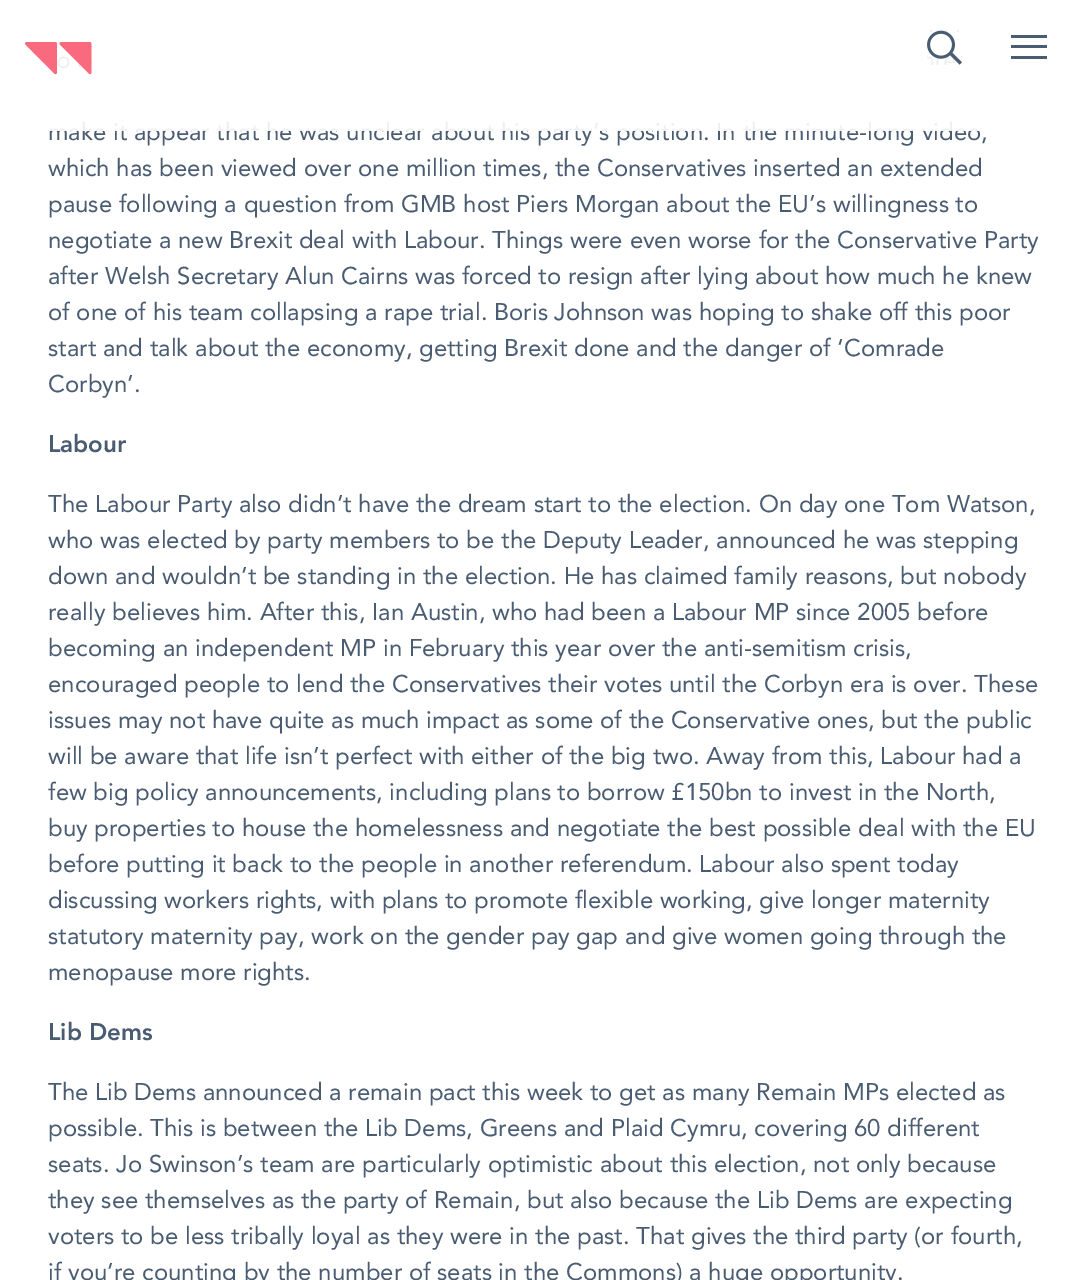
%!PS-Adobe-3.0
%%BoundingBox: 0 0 1089 1280
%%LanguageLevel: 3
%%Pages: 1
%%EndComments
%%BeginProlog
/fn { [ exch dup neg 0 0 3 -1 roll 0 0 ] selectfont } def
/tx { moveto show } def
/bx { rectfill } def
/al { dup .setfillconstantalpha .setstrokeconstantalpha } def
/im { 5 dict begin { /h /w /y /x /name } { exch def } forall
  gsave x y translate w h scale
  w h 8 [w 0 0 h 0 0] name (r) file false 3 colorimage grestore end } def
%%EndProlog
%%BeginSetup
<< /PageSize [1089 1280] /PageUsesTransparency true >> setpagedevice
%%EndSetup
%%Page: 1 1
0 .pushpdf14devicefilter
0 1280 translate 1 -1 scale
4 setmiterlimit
1 setgray
0 0 1089 1280 bx
/Avenir-Regular 24 fn
0.29 0.361 0.447 setrgbcolor
(make it appear that he was unclear about his party’s position. In the minute-long video,) 48 140 tx
0.9 al
1 setgray
49 121 931 10 bx
1 al
(image0.raw) 24 42 68 33 im
(image1.raw) 927 30 35 35 im
0.29 0.361 0.447 setrgbcolor
1011 35 36 3 bx
1011 45 36 3 bx
1011 56 36 3 bx
(which has been viewed over one million times, the Conservatives inserted an extended) 48 176 tx
(pause following a question from GMB host Piers Morgan about the EU’s willingness to) 48 212 tx
(negotiate a new Brexit deal with Labour. Things were even worse for the Conservative Party) 48 248 tx
(after Welsh Secretary Alun Cairns was forced to resign after lying about how much he knew) 48 284 tx
(of one of his team collapsing a rape trial. Boris Johnson was hoping to shake off this poor) 48 320 tx
(start and talk about the economy, getting Brexit done and the danger of ‘Comrade) 48 356 tx
(Corbyn’.) 48 392 tx
/Avenir-Black 24 fn
(Labour) 48 452 tx
/Avenir-Regular 24 fn
(The Labour Party also didn’t have the dream start to the election. On day one Tom Watson,) 48 512 tx
(who was elected by party members to be the Deputy Leader, announced he was stepping) 48 548 tx
(down and wouldn’t be standing in the election. He has claimed family reasons, but nobody) 48 584 tx
(really believes him. After this, Ian Austin, who had been a Labour MP since 2005 before) 48 620 tx
(becoming an independent MP in February this year over the anti-semitism crisis,) 48 656 tx
(encouraged people to lend the Conservatives their votes until the Corbyn era is over. These) 48 692 tx
(issues may not have quite as much impact as some of the Conservative ones, but the public) 48 728 tx
(will be aware that life isn’t perfect with either of the big two. Away from this, Labour had a) 48 764 tx
(few big policy announcements, including plans to borrow £150bn to invest in the North,) 48 800 tx
(buy properties to house the homelessness and negotiate the best possible deal with the EU) 48 836 tx
(before putting it back to the people in another referendum. Labour also spent today) 48 872 tx
(discussing workers rights, with plans to promote flexible working, give longer maternity) 48 908 tx
(statutory maternity pay, work on the gender pay gap and give women going through the) 48 944 tx
(menopause more rights.) 48 980 tx
/Avenir-Black 24 fn
(Lib Dems) 48 1040 tx
/Avenir-Regular 24 fn
(The Lib Dems announced a remain pact this week to get as many Remain MPs elected as) 48 1100 tx
(possible. This is between the Lib Dems, Greens and Plaid Cymru, covering 60 different) 48 1136 tx
(seats. Jo Swinson’s team are particularly optimistic about this election, not only because) 48 1172 tx
(they see themselves as the party of Remain, but also because the Lib Dems are expecting) 48 1208 tx
(voters to be less tribally loyal as they were in the past. That gives the third party \(or fourth,) 48 1244 tx
(if you’re counting by the number of seats in the Commons\) a huge opportunity.) 48 1280 tx
.poppdf14devicefilter showpage
%%EOF
